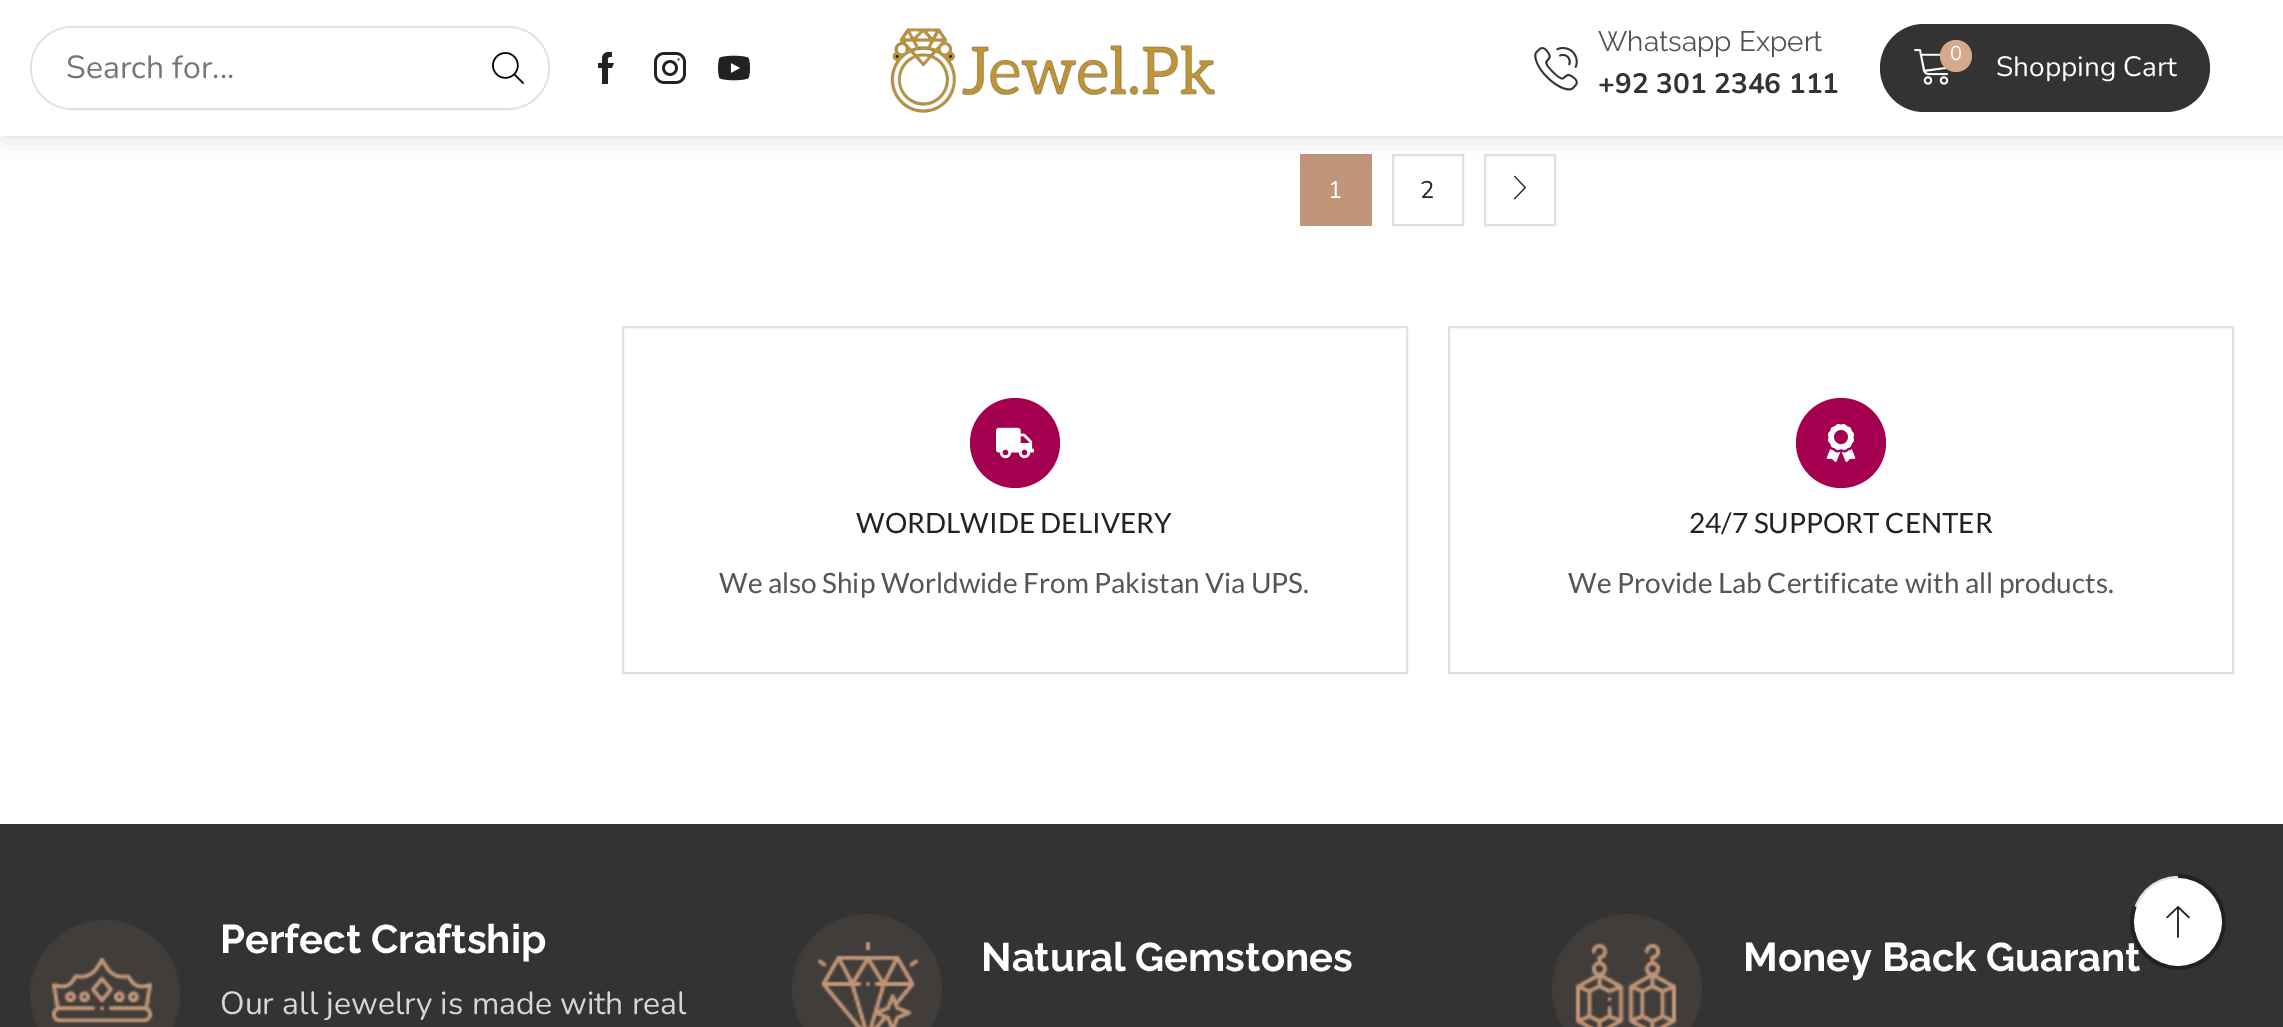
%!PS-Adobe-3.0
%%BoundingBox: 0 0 2283 1027
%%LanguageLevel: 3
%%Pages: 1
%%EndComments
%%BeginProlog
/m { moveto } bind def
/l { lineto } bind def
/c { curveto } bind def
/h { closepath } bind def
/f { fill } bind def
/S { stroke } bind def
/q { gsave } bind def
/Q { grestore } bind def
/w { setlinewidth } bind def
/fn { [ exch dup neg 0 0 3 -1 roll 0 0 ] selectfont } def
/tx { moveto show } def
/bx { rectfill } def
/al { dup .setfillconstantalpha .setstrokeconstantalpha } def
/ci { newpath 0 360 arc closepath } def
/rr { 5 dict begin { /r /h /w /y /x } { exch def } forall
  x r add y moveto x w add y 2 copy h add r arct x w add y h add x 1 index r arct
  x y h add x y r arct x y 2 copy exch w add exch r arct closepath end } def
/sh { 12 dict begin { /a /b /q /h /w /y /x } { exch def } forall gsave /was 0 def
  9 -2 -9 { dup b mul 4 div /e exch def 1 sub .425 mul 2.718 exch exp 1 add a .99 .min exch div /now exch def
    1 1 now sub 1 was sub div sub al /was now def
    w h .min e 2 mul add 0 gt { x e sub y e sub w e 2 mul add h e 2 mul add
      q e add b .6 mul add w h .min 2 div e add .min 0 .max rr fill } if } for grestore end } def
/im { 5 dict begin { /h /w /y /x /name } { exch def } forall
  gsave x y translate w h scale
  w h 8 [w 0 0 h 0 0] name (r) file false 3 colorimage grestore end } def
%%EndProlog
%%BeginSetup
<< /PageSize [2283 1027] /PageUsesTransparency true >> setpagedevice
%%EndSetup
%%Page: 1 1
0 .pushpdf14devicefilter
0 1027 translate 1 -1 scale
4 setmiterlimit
1 setgray
0 0 2283 1027 bx
0.753 0.584 0.471 setrgbcolor
1300 154 72 72 bx
0.882 setgray
2 w
1393 155 70 70 rectstroke
1485 155 70 70 rectstroke
0 setgray
4 0 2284 136 0 12 0.15 sh
1 setgray
0 0 2283 136 bx
0.882 setgray
31 27 518 82 41 rr S
1 setgray
72 28 m 468 28 l 468 108 l 72 108 l 50 108 32 90 32 68 c 32 46 50 28 72 28 c h f
/Nunito-Regular 32 fn
0.459 setgray
(Search for...) 66 78 tx
1 setgray
468 28 m 508 28 l 530 28 548 46 548 68 c 548 90 530 108 508 108 c 468 108 l h f
(image0.raw) 492 52 32 32 im
(image1.raw) 598 52 16 32 im
(image2.raw) 654 52 32 32 im
(image3.raw) 718 55 32 26 im
(image4.raw) 890 28 325 85 im
(image5.raw) 1534 46 44 45 im
/Raleway-Regular 28 fn
0.333 setgray
(Whatsapp Expert) 1598 51 tx
/Nunito-Bold 28 fn
0.2 setgray
(+92 301 2346 111) 1598 93 tx
1880 24 330 88 44 rr f
(image6.raw) 1914 49 35 36 im
0.831 0.663 0.549 setrgbcolor
1956 56 16 ci f
/Nunito-Regular 20 fn
1 setgray
(0) 1950 60 tx
/Nunito-Regular 28 fn
(Shopping Cart) 1996 76 tx
/Nunito-Regular 24 fn
(1) 1328 198 tx
0.133 setgray
(2) 1420 198 tx
(image7.raw) 1513 175 13 25 im
0.882 setgray
623 327 784 346 rectstroke
0.643 0 0.31 setrgbcolor
1015 443 45 ci f
(image8.raw) 996 427 38 32 im
/Lato-Regular 28 fn
0.133 setgray
(WORDLWIDE DELIVERY) 856 533 tx
0.333 setgray
(We also Ship Worldwide From Pakistan Via UPS.) 719 593 tx
0.882 setgray
1449 327 784 346 rectstroke
0.643 0 0.31 setrgbcolor
1841 443 45 ci f
(image9.raw) 1826 424 30 38 im
0.133 setgray
(24/7 SUPPORT CENTER) 1689 533 tx
0.333 setgray
(We Provide Lab Certificate with all products.) 1568 593 tx
0.2 setgray
0 824 2283 203 bx
1 setgray
2178 922 45 ci q f Q
0.882 setgray
S
/Raleway-Bold 40 fn
1 setgray
(Money Back Guarant) 1743 971 tx
0.133 setgray
3.8 w
2178 876 m 2203.5 876 2224 896.5 2224 922 c 2224 947.5 2203.5 968 2178 968 c 2152.5 968 2132 947.5 2132 922 c 2132 916.5 2133 911.5 2134.5 906.5 c S
(image10.raw) 2166 906 24 32 im
(image11.raw) 30 920 150 107 im
1 setgray
(Perfect Craftship) 220 953 tx
/Nunito-Regular 32 fn
0.839 setgray
(Our all jewelry is made with real) 220 1014 tx
(image12.raw) 792 914 150 113 im
/Raleway-Bold 40 fn
1 setgray
(Natural Gemstones) 981 971 tx
(image13.raw) 1552 914 150 113 im
.poppdf14devicefilter showpage
%%EOF
